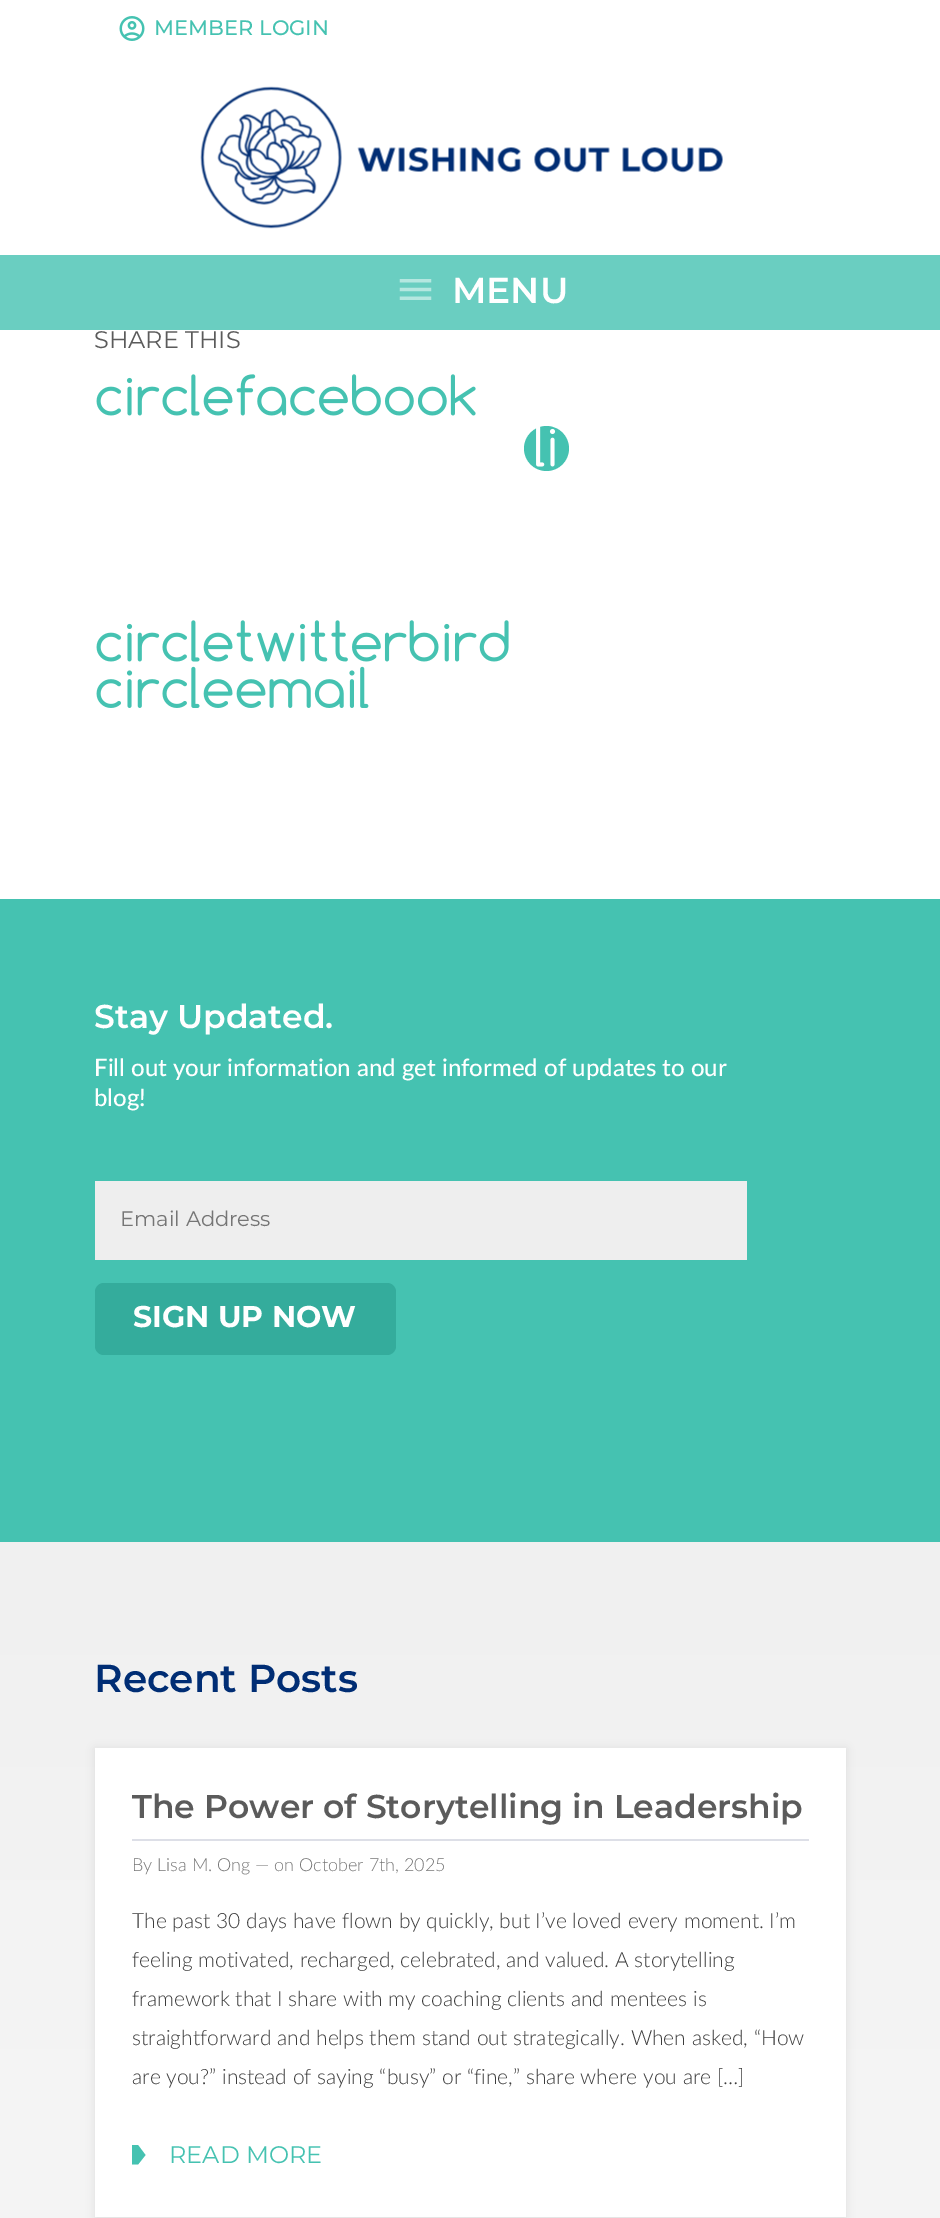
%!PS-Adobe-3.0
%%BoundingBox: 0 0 940 2218
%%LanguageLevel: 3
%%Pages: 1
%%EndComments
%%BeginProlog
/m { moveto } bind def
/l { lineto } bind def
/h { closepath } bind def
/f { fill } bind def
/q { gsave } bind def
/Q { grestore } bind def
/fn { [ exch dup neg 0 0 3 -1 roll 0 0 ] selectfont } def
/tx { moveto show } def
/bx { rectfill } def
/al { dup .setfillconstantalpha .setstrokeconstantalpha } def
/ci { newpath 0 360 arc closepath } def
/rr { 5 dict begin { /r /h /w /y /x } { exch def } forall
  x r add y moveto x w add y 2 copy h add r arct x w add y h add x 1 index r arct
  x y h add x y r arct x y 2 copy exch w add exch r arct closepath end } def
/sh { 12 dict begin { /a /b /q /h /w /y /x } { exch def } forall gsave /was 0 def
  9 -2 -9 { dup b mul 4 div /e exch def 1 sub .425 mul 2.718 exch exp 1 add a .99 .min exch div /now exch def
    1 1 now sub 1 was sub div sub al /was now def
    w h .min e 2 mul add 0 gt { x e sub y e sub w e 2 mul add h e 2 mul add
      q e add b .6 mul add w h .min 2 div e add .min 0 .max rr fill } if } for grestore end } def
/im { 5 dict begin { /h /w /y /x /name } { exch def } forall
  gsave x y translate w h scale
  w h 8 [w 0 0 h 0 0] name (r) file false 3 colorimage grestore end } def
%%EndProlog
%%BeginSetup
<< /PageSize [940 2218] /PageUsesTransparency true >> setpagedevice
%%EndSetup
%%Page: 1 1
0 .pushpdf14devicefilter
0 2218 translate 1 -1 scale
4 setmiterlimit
1 setgray
0 0 940 2218 bx
(image0.raw) 119 16 26 25 im
/Montserrat-Medium 21 fn
0.271 0.761 0.694 setrgbcolor
(MEMBER LOGIN) 154 35 tx
(image1.raw) 200 86 523 143 im
0.416 0.808 0.757 setrgbcolor
0 255 940 75 bx
(image2.raw) 399 279 33 21 im
/Montserrat-SemiBold 36 fn
1 setgray
(MENU) 452 303 tx
/Montserrat-Regular 24 fn
0.357 setgray
(SHARE THIS) 94 348 tx
(image3.raw) 96 374 380 42 im
0.271 0.761 0.694 setrgbcolor
546.5 448.5 22.5 ci f
(image4.raw) 536 427 20 40 im
(image5.raw) 96 620 413 42 im
(image6.raw) 96 666 273 42 im
0 899 940 643 bx
/Montserrat-SemiBold 33 fn
1 setgray
(Stay Updated.) 94 1028 tx
/Lato-Medium 24 fn
(Fill out your information and get informed of updates to our) 94 1076 tx
(blog!) 94 1106 tx
0.933 setgray
95 1181 652 79 bx
/Montserrat-Regular 21 fn
0.459 setgray
(Email Address) 120 1226 tx
0.204 0.675 0.612 setrgbcolor
95 1283 301 72 9 rr f
/Montserrat-Bold 30 fn
1 setgray
(SIGN UP NOW) 133 1327 tx
q 0 1542 m 940 1542 l 940 2218 l 0 2218 l h clip newpath
<< /ShadingType 2 /ColorSpace /DeviceRGB /Coords [470 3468 470 1542] /Extend [true true] /Function << /FunctionType 2 /Domain [0 1] /C0 [1 1 1] /C1 [0.941 0.941 0.941] /N 1 >> >> shfill Q
/Montserrat-SemiBold 39 fn
0 0.176 0.455 setrgbcolor
(Recent Posts) 94 1692 tx
0.796 setgray
95 1749 751 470 0 4.5 0.5 sh
1 setgray
95 1748 751 469 bx
0.867 0.875 0.906 setrgbcolor
132 1839 677 2 bx
/Montserrat-SemiBold 33 fn
0.357 setgray
(The Power of Storytelling in Leadership) 132 1818 tx
/Lato-Light 18 fn
0.459 setgray
(By Lisa M. Ong — on October 7th, 2025) 132 1871 tx
/Lato-Light 21 fn
0.235 setgray
(The past 30 days have flown by quickly, but I’ve loved every moment. I’m) 132 1928 tx
(feeling motivated, recharged, celebrated, and valued. A storytelling) 132 1967 tx
(framework that I share with my coaching clients and mentees is) 132 2006 tx
(straightforward and helps them stand out strategically. When asked, “How) 132 2045 tx
(are you?” instead of saying “busy” or “fine,” share where you are […]) 132 2084 tx
0.271 0.761 0.694 setrgbcolor
138 2145 m 132 2145 l 132 2164.5 l 138 2164.5 l 145.5 2155 l h f
/Montserrat-Regular 24 fn
(READ MORE) 169 2163 tx
.poppdf14devicefilter showpage
%%EOF
